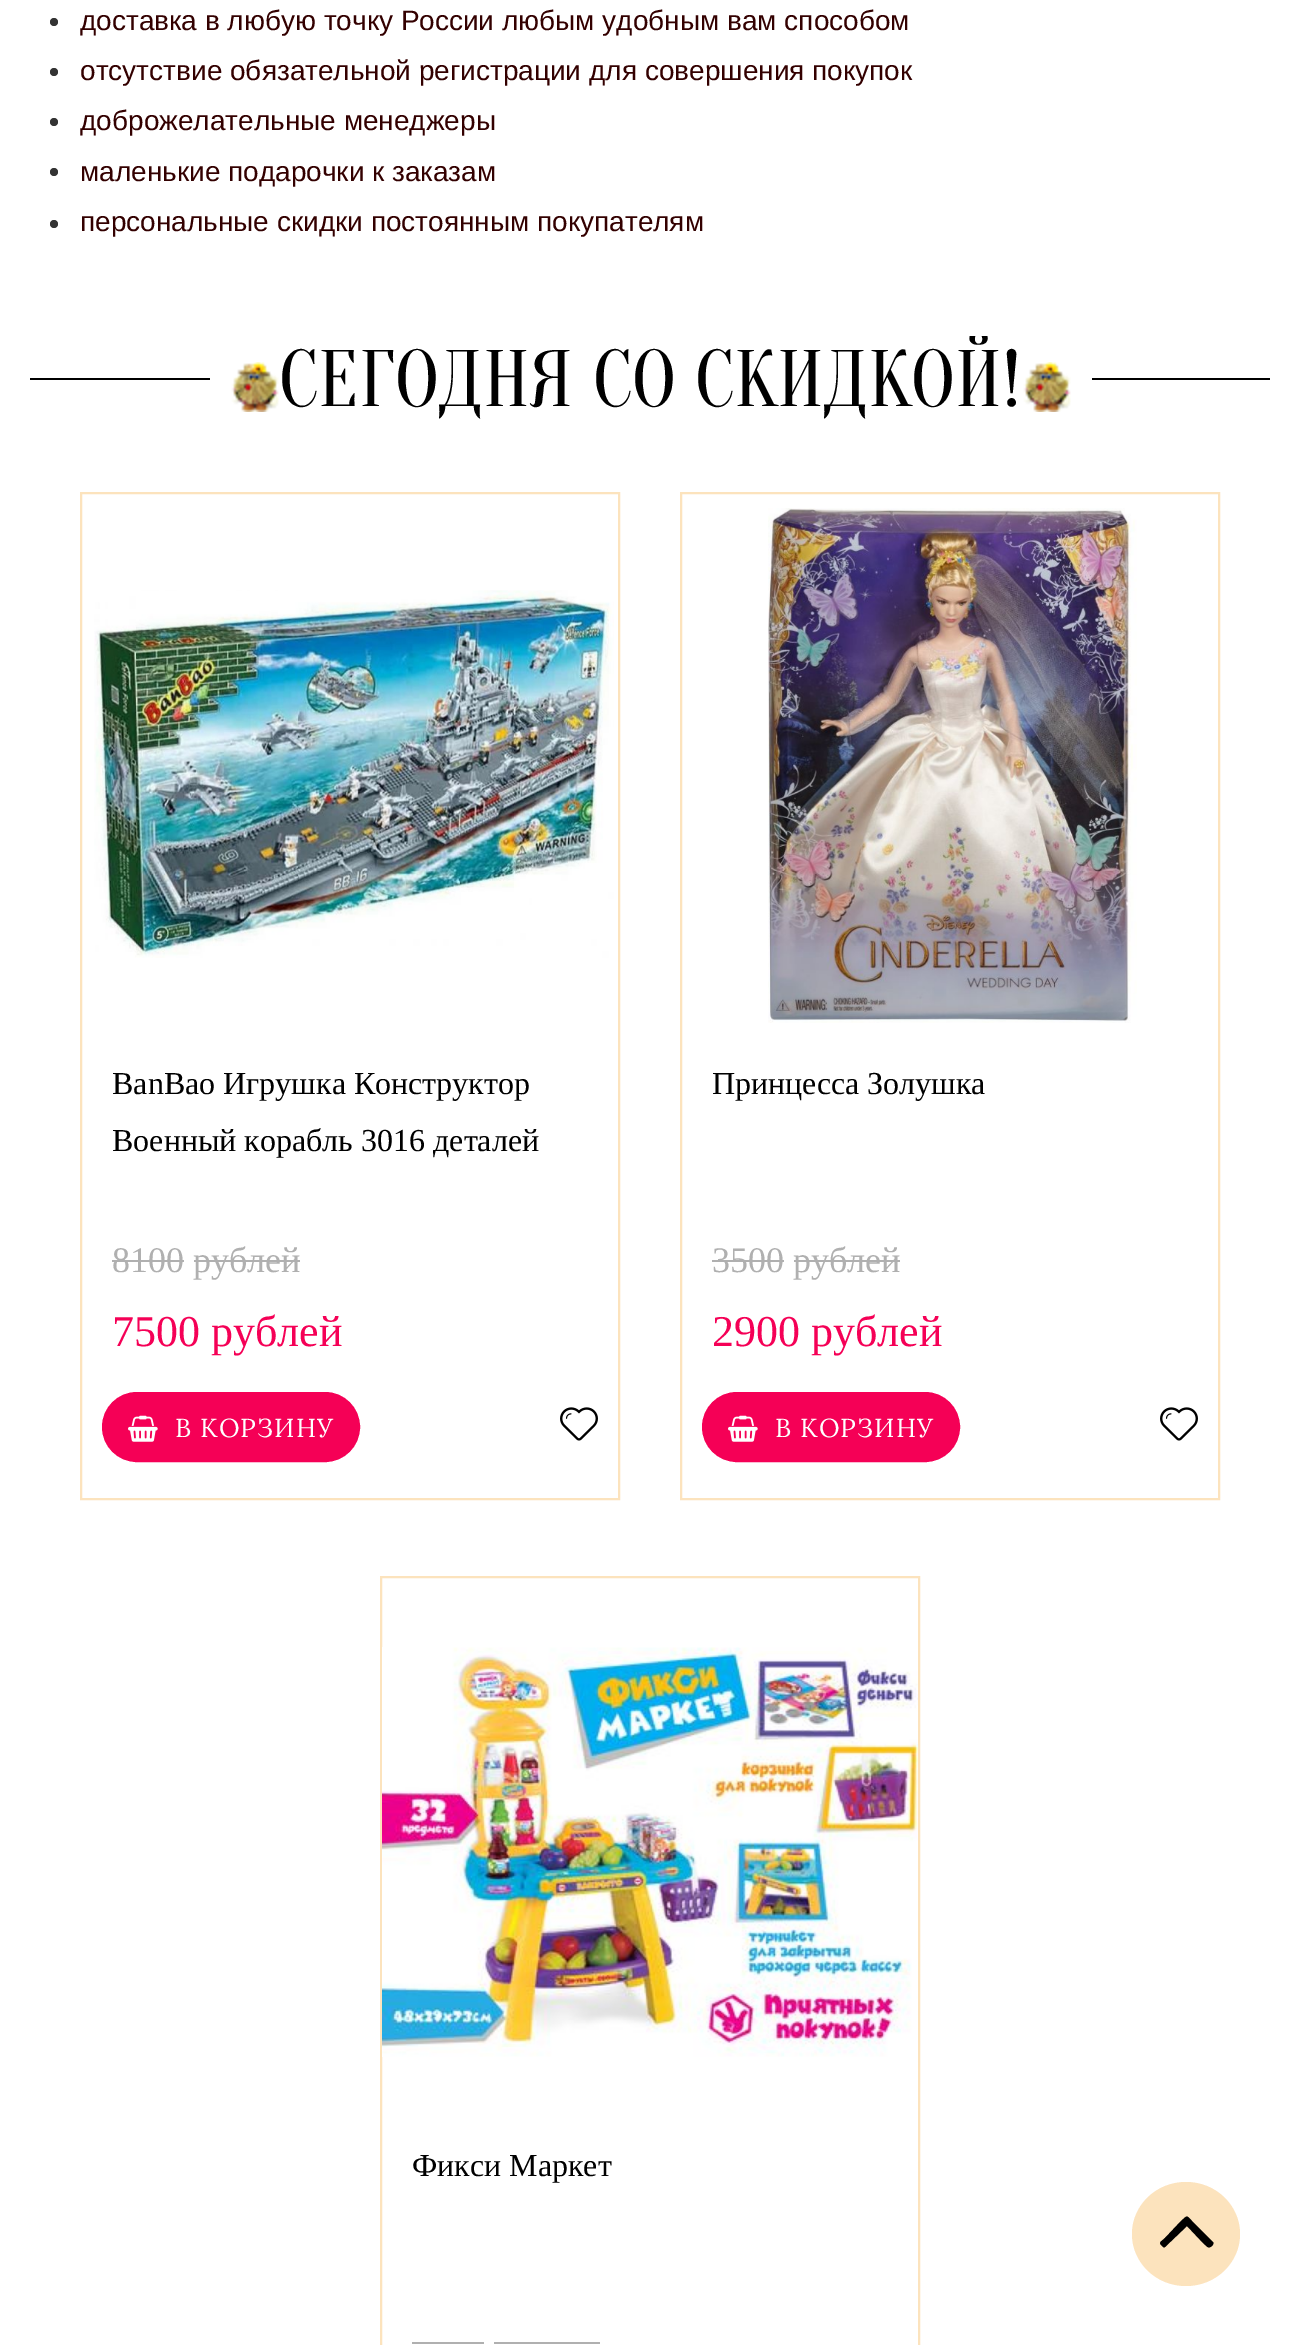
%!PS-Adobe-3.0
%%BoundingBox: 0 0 1299 2345
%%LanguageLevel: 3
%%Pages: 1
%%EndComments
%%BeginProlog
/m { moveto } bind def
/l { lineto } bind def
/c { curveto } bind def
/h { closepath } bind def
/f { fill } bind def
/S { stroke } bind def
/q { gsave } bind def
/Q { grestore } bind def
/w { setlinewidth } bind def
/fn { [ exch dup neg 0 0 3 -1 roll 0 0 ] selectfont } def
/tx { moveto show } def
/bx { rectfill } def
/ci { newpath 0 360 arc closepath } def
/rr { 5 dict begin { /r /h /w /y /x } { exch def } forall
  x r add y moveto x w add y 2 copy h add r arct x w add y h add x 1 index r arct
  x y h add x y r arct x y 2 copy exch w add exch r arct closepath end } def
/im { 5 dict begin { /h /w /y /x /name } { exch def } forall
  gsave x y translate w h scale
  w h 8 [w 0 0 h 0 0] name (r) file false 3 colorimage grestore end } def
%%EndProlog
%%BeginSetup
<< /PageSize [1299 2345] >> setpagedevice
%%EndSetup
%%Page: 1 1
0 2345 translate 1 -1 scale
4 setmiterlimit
1 setgray
0 0 1299 2345 bx
0.2 setgray
54 22 4 ci f
/LiberationSans-Regular 28 fn
0.2 0 0 setrgbcolor
(доставка в любую точку России любым удобным вам способом) 80 30 tx
0.2 setgray
54 72 4 ci f
0.2 0 0 setrgbcolor
(отсутствие обязательной регистрации для совершения покупок) 80 80 tx
0.2 setgray
54 122 4 ci f
0.2 0 0 setrgbcolor
(доброжелательные менеджеры) 80 130 tx
0.2 setgray
54 172 4 ci f
0.2 0 0 setrgbcolor
(маленькие подарочки к заказам) 80 181 tx
0.2 setgray
54 224 4 ci f
0.2 0 0 setrgbcolor
(персональные скидки постоянным покупателям) 80 231 tx
0 setgray
30 378 1240 2 bx
1 setgray
210 378 882 2 bx
(image0.raw) 231 362 48 50 im
/Oranienbaum-Regular 80 fn
0 setgray
(СЕГОДНЯ СО СКИДКОЙ!) 279 406 tx
(image0.raw) 1023 362 48 50 im
0.988 0.89 0.741 setrgbcolor
2 w
81 493 538 1006 rectstroke
(image1.raw) 94 590 520 368 im
/LiberationSerif-Regular 32 fn
0 setgray
(BanBao Игрушка Конструктор) 112 1094 tx
(Военный корабль 3016 деталей) 112 1151 tx
/LiberationSerif-Regular 36 fn
0.69 setgray
(8100 рублей) 112 1272 tx
112 1260 72 2 bx
194 1260 106 2 bx
/LiberationSerif-Regular 44 fn
0.961 0 0.337 setrgbcolor
(7500 рублей) 112 1346 tx
103 1393 256 68 34 rr q f Q
S
(image2.raw) 128 1415 30 27 im
/Lora-Regular 26 fn
1 setgray
175 1437 m 1 0 (В КОРЗИНУ) ashow
(image3.raw) 560 1407 38 34 im
0.988 0.89 0.741 setrgbcolor
681 493 538 1006 rectstroke
(image4.raw) 768 508 369 515 im
/LiberationSerif-Regular 32 fn
0 setgray
(Принцесса Золушка) 712 1094 tx
/LiberationSerif-Regular 36 fn
0.69 setgray
(3500 рублей) 712 1272 tx
712 1260 72 2 bx
794 1260 106 2 bx
/LiberationSerif-Regular 44 fn
0.961 0 0.337 setrgbcolor
(2900 рублей) 712 1346 tx
703 1393 256 68 34 rr q f Q
S
(image2.raw) 728 1415 30 27 im
/Lora-Regular 26 fn
1 setgray
775 1437 m 1 0 (В КОРЗИНУ) ashow
(image3.raw) 1160 1407 38 34 im
0.988 0.89 0.741 setrgbcolor
381 1577 538 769 rectstroke
(image5.raw) 382 1647 536 410 im
/LiberationSerif-Regular 32 fn
0 setgray
(Фикси Маркет) 412 2176 tx
0.69 setgray
412 2342 72 2 bx
494 2342 106 2 bx
0.988 0.89 0.741 setrgbcolor
1186 2182 m 1216 2182 1240 2205.5 1240 2234 c 1240 2262.5 1216 2286 1186 2286 c 1156 2286 1132 2262.5 1132 2234 c 1132 2205.5 1156 2182 1186 2182 c h f
0 setgray
1213 2242 m 1214 2243 1213 2245 1212 2246 c 1208 2249 1208 2247 1204 2244 c 1187 2226 l 1165 2247 l 1164 2248 1163 2247 1162 2246 c 1158 2242 1161 2242 1165 2238 c 1181 2221 l 1188 2215 1186 2215 1192 2221 c h f
showpage
%%EOF
